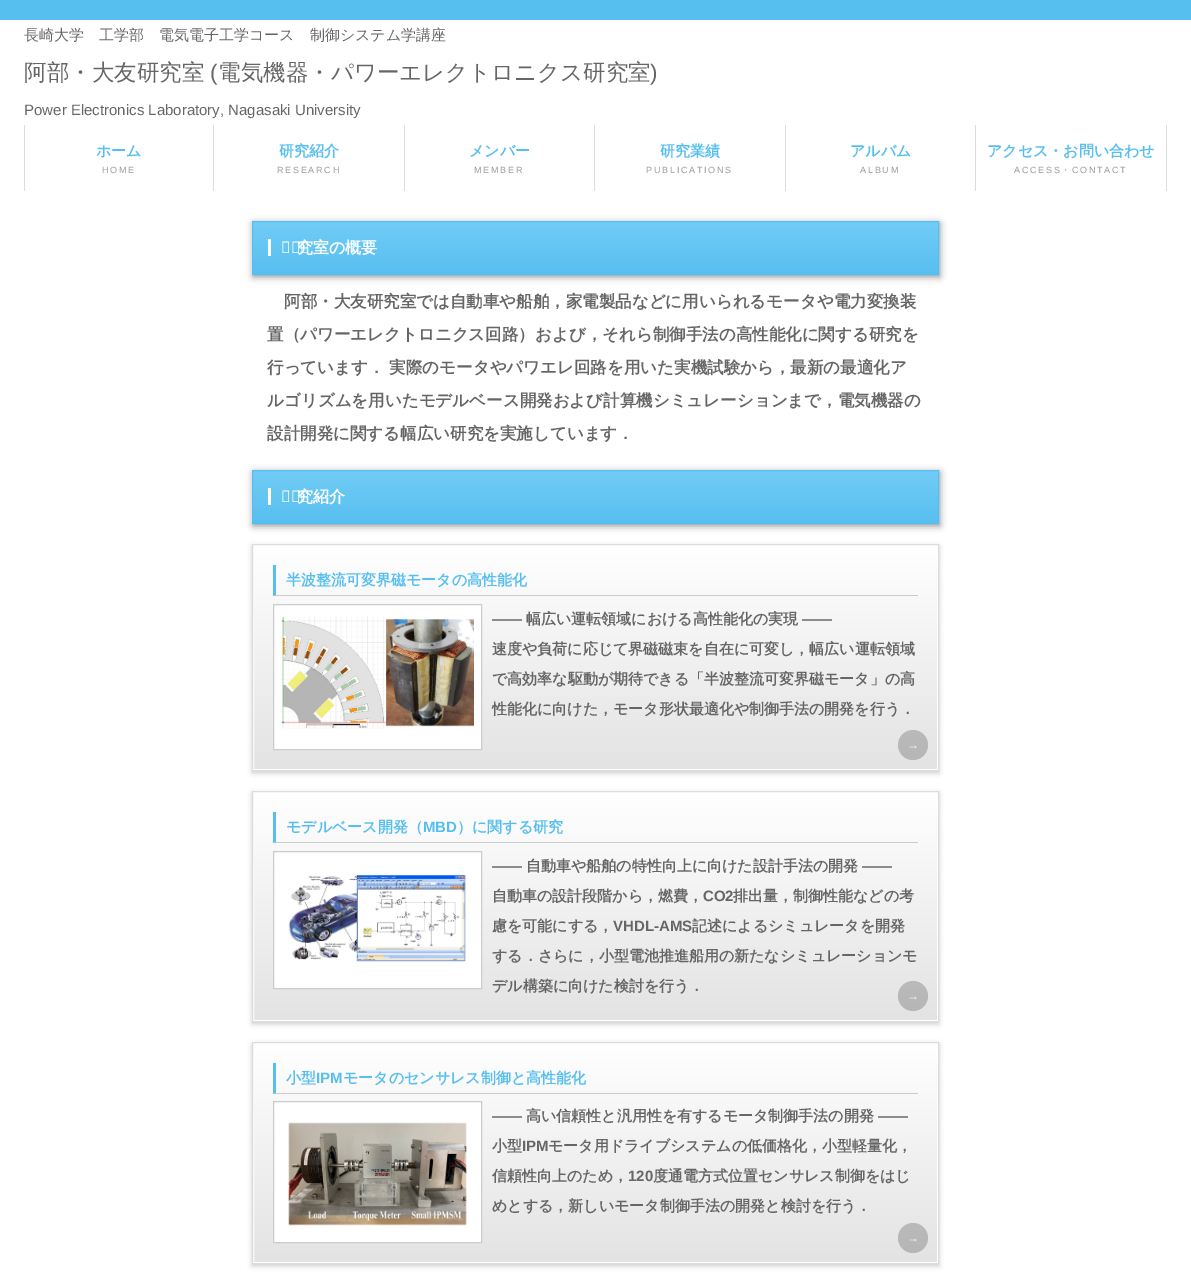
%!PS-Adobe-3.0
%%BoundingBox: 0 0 1191 1276
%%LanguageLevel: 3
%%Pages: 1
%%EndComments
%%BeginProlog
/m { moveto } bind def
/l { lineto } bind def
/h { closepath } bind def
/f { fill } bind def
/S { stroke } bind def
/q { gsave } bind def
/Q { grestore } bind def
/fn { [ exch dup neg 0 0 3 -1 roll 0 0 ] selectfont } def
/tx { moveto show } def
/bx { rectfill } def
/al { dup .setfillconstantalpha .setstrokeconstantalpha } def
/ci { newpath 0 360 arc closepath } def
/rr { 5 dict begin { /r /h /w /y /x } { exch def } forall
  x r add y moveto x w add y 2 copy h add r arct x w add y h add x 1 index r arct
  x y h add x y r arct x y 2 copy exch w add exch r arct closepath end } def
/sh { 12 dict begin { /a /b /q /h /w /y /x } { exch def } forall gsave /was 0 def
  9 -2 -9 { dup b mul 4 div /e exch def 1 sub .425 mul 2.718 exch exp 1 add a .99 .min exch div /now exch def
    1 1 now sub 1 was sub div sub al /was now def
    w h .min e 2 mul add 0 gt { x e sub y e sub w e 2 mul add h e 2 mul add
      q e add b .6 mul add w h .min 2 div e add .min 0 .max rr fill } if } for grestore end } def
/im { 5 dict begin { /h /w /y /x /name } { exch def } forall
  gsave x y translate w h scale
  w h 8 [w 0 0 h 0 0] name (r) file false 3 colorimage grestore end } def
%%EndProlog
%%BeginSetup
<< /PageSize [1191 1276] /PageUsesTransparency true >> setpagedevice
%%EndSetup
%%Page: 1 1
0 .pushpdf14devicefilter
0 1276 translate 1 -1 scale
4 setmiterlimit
1 setgray
0 0 1191 1276 bx
0.341 0.749 0.941 setrgbcolor
0 0 1191 20 bx
/WenQuanYiZenHei-Medium 15 fn
0.4 setgray
(長崎大学　工学部　電気電子工学コース　制御システム学講座) 24 40 tx
/WenQuanYiZenHei-Medium 22.5 fn
(阿部・大友研究室) 24 80 tx
/LiberationSans-Regular 22.5 fn
(\() 210 80 tx
/WenQuanYiZenHei-Medium 22.5 fn
(電気機器・パワーエレクトロニクス研究室) 218 80 tx
/LiberationSans-Regular 22.5 fn
(\)) 650 80 tx
/LiberationSans-Regular 15 fn
(Power Electronics Laboratory, Nagasaki University) 24 115 tx
0.863 setgray
213 125 1 66 bx
24 125 1 66 bx
/WenQuanYiZenHei-Bold 15 fn
0.341 0.749 0.941 setrgbcolor
(ホーム) 96 156 tx
/LiberationSans-Regular 9 fn
0.6 setgray
102 173 m 1.75 0 (HOME) ashow
0.863 setgray
404 125 1 66 bx
/WenQuanYiZenHei-Bold 15 fn
0.341 0.749 0.941 setrgbcolor
(研究紹介) 279 156 tx
/LiberationSans-Regular 9 fn
0.6 setgray
277 173 m 1.75 0 (RESEARCH) ashow
0.863 setgray
594 125 1 66 bx
/WenQuanYiZenHei-Bold 15 fn
0.341 0.749 0.941 setrgbcolor
(メンバー) 469 156 tx
/LiberationSans-Regular 9 fn
0.6 setgray
474 173 m 1.75 0 (MEMBER) ashow
0.863 setgray
785 125 1 66 bx
/WenQuanYiZenHei-Bold 15 fn
0.341 0.749 0.941 setrgbcolor
(研究業績) 660 156 tx
/LiberationSans-Regular 9 fn
0.6 setgray
646 173 m 1.75 0 (PUBLICATIONS) ashow
0.863 setgray
975 125 1 66 bx
/WenQuanYiZenHei-Bold 15 fn
0.341 0.749 0.941 setrgbcolor
(アルバム) 850 156 tx
/LiberationSans-Regular 9 fn
0.6 setgray
860 173 m 1.75 0 (ALBUM) ashow
0.863 setgray
1166 125 1 66 bx
/WenQuanYiZenHei-Bold 15 fn
0.341 0.749 0.941 setrgbcolor
(アクセス・お問い合わせ) 987 156 tx
/LiberationSans-Regular 9 fn
0.6 setgray
1014 173 m 1.75 0 (ACCESS) ashow
/WenQuanYiZenHei-Medium 9 fn
1061 173 m 1.75 0 (・) ashow
/LiberationSans-Regular 9 fn
1072 173 m 1.75 0 (CONTACT) ashow
0 setgray
253 223 687 54 0 3.5 0.4 sh
q 253 222 m 938 222 l 938 274 l 253 274 l h clip newpath
<< /ShadingType 2 /ColorSpace /DeviceRGB /Coords [596 222 596 274] /Extend [true true] /Function << /FunctionType 2 /Domain [0 1] /C0 [0.447 0.8 0.965] /C1 [0.341 0.749 0.941] /N 1 >> >> shfill Q
0.341 0.749 0.941 setrgbcolor
252.5 221.5 686 53 rectstroke
/NotoSans-Thin 16 fn
1 setgray
(研) 281 253 tx
268 239 3 17 bx
/WenQuanYiZenHei-Bold 16 fn
(究室の概要) 297 253 tx
/WenQuanYiZenHei-Bold 16.5 fn
0.4 setgray
(阿部・大友研究室では自動車や船舶，家電製品などに用いられるモータや電力変換装) 284 307 tx
(置（パワーエレクトロニクス回路）および，それら制御手法の高性能化に関する研究を) 267 340 tx
(行っています． 実際のモータやパワエレ回路を用いた実機試験から，最新の最適化ア) 267 373 tx
(ルゴリズムを用いたモデルベース開発および計算機シミュレーションまで，電気機器の) 267 406 tx
(設計開発に関する幅広い研究を実施しています．) 267 439 tx
0 setgray
253 472 687 54 0 3.5 0.4 sh
q 253 471 m 938 471 l 938 523 l 253 523 l h clip newpath
<< /ShadingType 2 /ColorSpace /DeviceRGB /Coords [596 471 596 523] /Extend [true true] /Function << /FunctionType 2 /Domain [0 1] /C0 [0.447 0.8 0.965] /C1 [0.341 0.749 0.941] /N 1 >> >> shfill Q
0.341 0.749 0.941 setrgbcolor
252.5 470.5 686 53 rectstroke
/NotoSans-Thin 16 fn
1 setgray
(研) 281 502 tx
268 488 3 17 bx
/WenQuanYiZenHei-Bold 16 fn
(究紹介) 297 502 tx
0.8 setgray
252 546 687 227 0 2.5 1 sh
q 254 546 m 937 546 l 937 769 l 254 769 l h clip newpath
<< /ShadingType 2 /ColorSpace /DeviceRGB /Coords [596 545 596 770] /Extend [true true] /Function << /FunctionType 2 /Domain [0 1] /C0 [1 1 1] /C1 [0.89 0.89 0.89] /N 1 >> >> shfill Q
1 setgray
253.5 545.5 684 224 rectstroke
0.863 setgray
252.5 544.5 686 226 rectstroke
0.8 setgray
918 596 m 273 596 l 276 595 l 918 595 l h f
0.341 0.749 0.941 setrgbcolor
273 596 m 273 565 l 276 565 l 276 595 l h f
/WenQuanYiZenHei-Bold 15 fn
(半波整流可変界磁モータの高性能化) 286 585 tx
1 setgray
273.5 604.5 m 481.5 604.5 l 481.5 749.5 l 273.5 749.5 l h q f Q
0.8 setgray
S
(image0.raw) 281 616 193 113 im
/LiberationSans-Bold 15 fn
0.4 setgray
(――) 492 624 tx
/WenQuanYiZenHei-Bold 15 fn
(幅広い運転領域における高性能化の実現) 526 624 tx
/LiberationSans-Bold 15 fn
(――) 802 624 tx
/WenQuanYiZenHei-Bold 15 fn
(速度や負荷に応じて界磁磁束を自在に可変し，幅広い運転領域) 492 654 tx
(で高効率な駆動が期待できる「半波整流可変界磁モータ」の高) 492 684 tx
(性能化に向けた，モータ形状最適化や制御手法の開発を行う．) 492 714 tx
0.2 al
0 setgray
913 745 15 ci f
/LiberationSans-Bold 12 fn
1 al
1 setgray
(→) 907 749 tx
0.8 setgray
252 793 687 231 0 2.5 1 sh
q 254 793 m 937 793 l 937 1020 l 254 1020 l h clip newpath
<< /ShadingType 2 /ColorSpace /DeviceRGB /Coords [596 792 596 1021] /Extend [true true] /Function << /FunctionType 2 /Domain [0 1] /C0 [1 1 1] /C1 [0.89 0.89 0.89] /N 1 >> >> shfill Q
1 setgray
253.5 792.5 684 228 rectstroke
0.863 setgray
252.5 791.5 686 230 rectstroke
0.8 setgray
918 843 m 273 843 l 276 842 l 918 842 l h f
0.341 0.749 0.941 setrgbcolor
273 843 m 273 812 l 276 812 l 276 842 l h f
/WenQuanYiZenHei-Bold 15 fn
(モデルベース開発（) 286 832 tx
/LiberationSans-Bold 15 fn
(MBD) 423 832 tx
/WenQuanYiZenHei-Bold 15 fn
(）に関する研究) 457 832 tx
1 setgray
273.5 851.5 m 481.5 851.5 l 481.5 988.5 l 273.5 988.5 l h q f Q
0.8 setgray
S
(image1.raw) 288 874 178 88 im
/LiberationSans-Bold 15 fn
0.4 setgray
(――) 492 871 tx
/WenQuanYiZenHei-Bold 15 fn
(自動車や船舶の特性向上に向けた設計手法の開発) 526 871 tx
/LiberationSans-Bold 15 fn
(――) 862 871 tx
/WenQuanYiZenHei-Bold 15 fn
(自動車の設計段階から，燃費，) 492 901 tx
/LiberationSans-Bold 15 fn
(CO2) 703 901 tx
/WenQuanYiZenHei-Bold 15 fn
(排出量，制御性能などの考) 733 901 tx
(慮を可能にする，) 492 931 tx
/LiberationSans-Bold 15 fn
(VHDL-AMS) 613 931 tx
/WenQuanYiZenHei-Bold 15 fn
(記述によるシミュレータを開発) 692 931 tx
(する．さらに，小型電池推進船用の新たなシミュレーションモ) 492 961 tx
(デル構築に向けた検討を行う．) 492 991 tx
0.2 al
0 setgray
913 996 15 ci f
/LiberationSans-Bold 12 fn
1 al
1 setgray
(→) 907 1000 tx
0.8 setgray
252 1044 687 222 0 2.5 1 sh
q 254 1044 m 937 1044 l 937 1262 l 254 1262 l h clip newpath
<< /ShadingType 2 /ColorSpace /DeviceRGB /Coords [596 1043 596 1263] /Extend [true true] /Function << /FunctionType 2 /Domain [0 1] /C0 [1 1 1] /C1 [0.89 0.89 0.89] /N 1 >> >> shfill Q
1 setgray
253.5 1043.5 684 219 rectstroke
0.863 setgray
252.5 1042.5 686 221 rectstroke
0.8 setgray
918 1094 m 273 1094 l 276 1093 l 918 1093 l h f
0.341 0.749 0.941 setrgbcolor
273 1094 m 273 1063 l 276 1063 l 276 1093 l h f
/WenQuanYiZenHei-Bold 15 fn
(小型) 286 1083 tx
/LiberationSans-Bold 15 fn
(IPM) 316 1083 tx
/WenQuanYiZenHei-Bold 15 fn
(モータのセンサレス制御と高性能化) 343 1083 tx
1 setgray
273.5 1101.5 m 481.5 1101.5 l 481.5 1242.5 l 273.5 1242.5 l h q f Q
0.8 setgray
S
(image2.raw) 288 1122 179 104 im
/LiberationSans-Bold 15 fn
0.4 setgray
(――) 492 1121 tx
/WenQuanYiZenHei-Bold 15 fn
(高い信頼性と汎用性を有するモータ制御手法の開発) 526 1121 tx
/LiberationSans-Bold 15 fn
(――) 878 1121 tx
/WenQuanYiZenHei-Bold 15 fn
(小型) 492 1151 tx
/LiberationSans-Bold 15 fn
(IPM) 522 1151 tx
/WenQuanYiZenHei-Bold 15 fn
(モータ用ドライブシステムの低価格化，小型軽量化，) 548 1151 tx
(信頼性向上のため，) 492 1181 tx
/LiberationSans-Bold 15 fn
(120) 628 1181 tx
/WenQuanYiZenHei-Bold 15 fn
(度通電方式位置センサレス制御をはじ) 653 1181 tx
(めとする，新しいモータ制御手法の開発と検討を行う．) 492 1211 tx
0.2 al
0 setgray
913 1238 15 ci f
/LiberationSans-Bold 12 fn
1 al
1 setgray
(→) 907 1242 tx
.poppdf14devicefilter showpage
%%EOF
